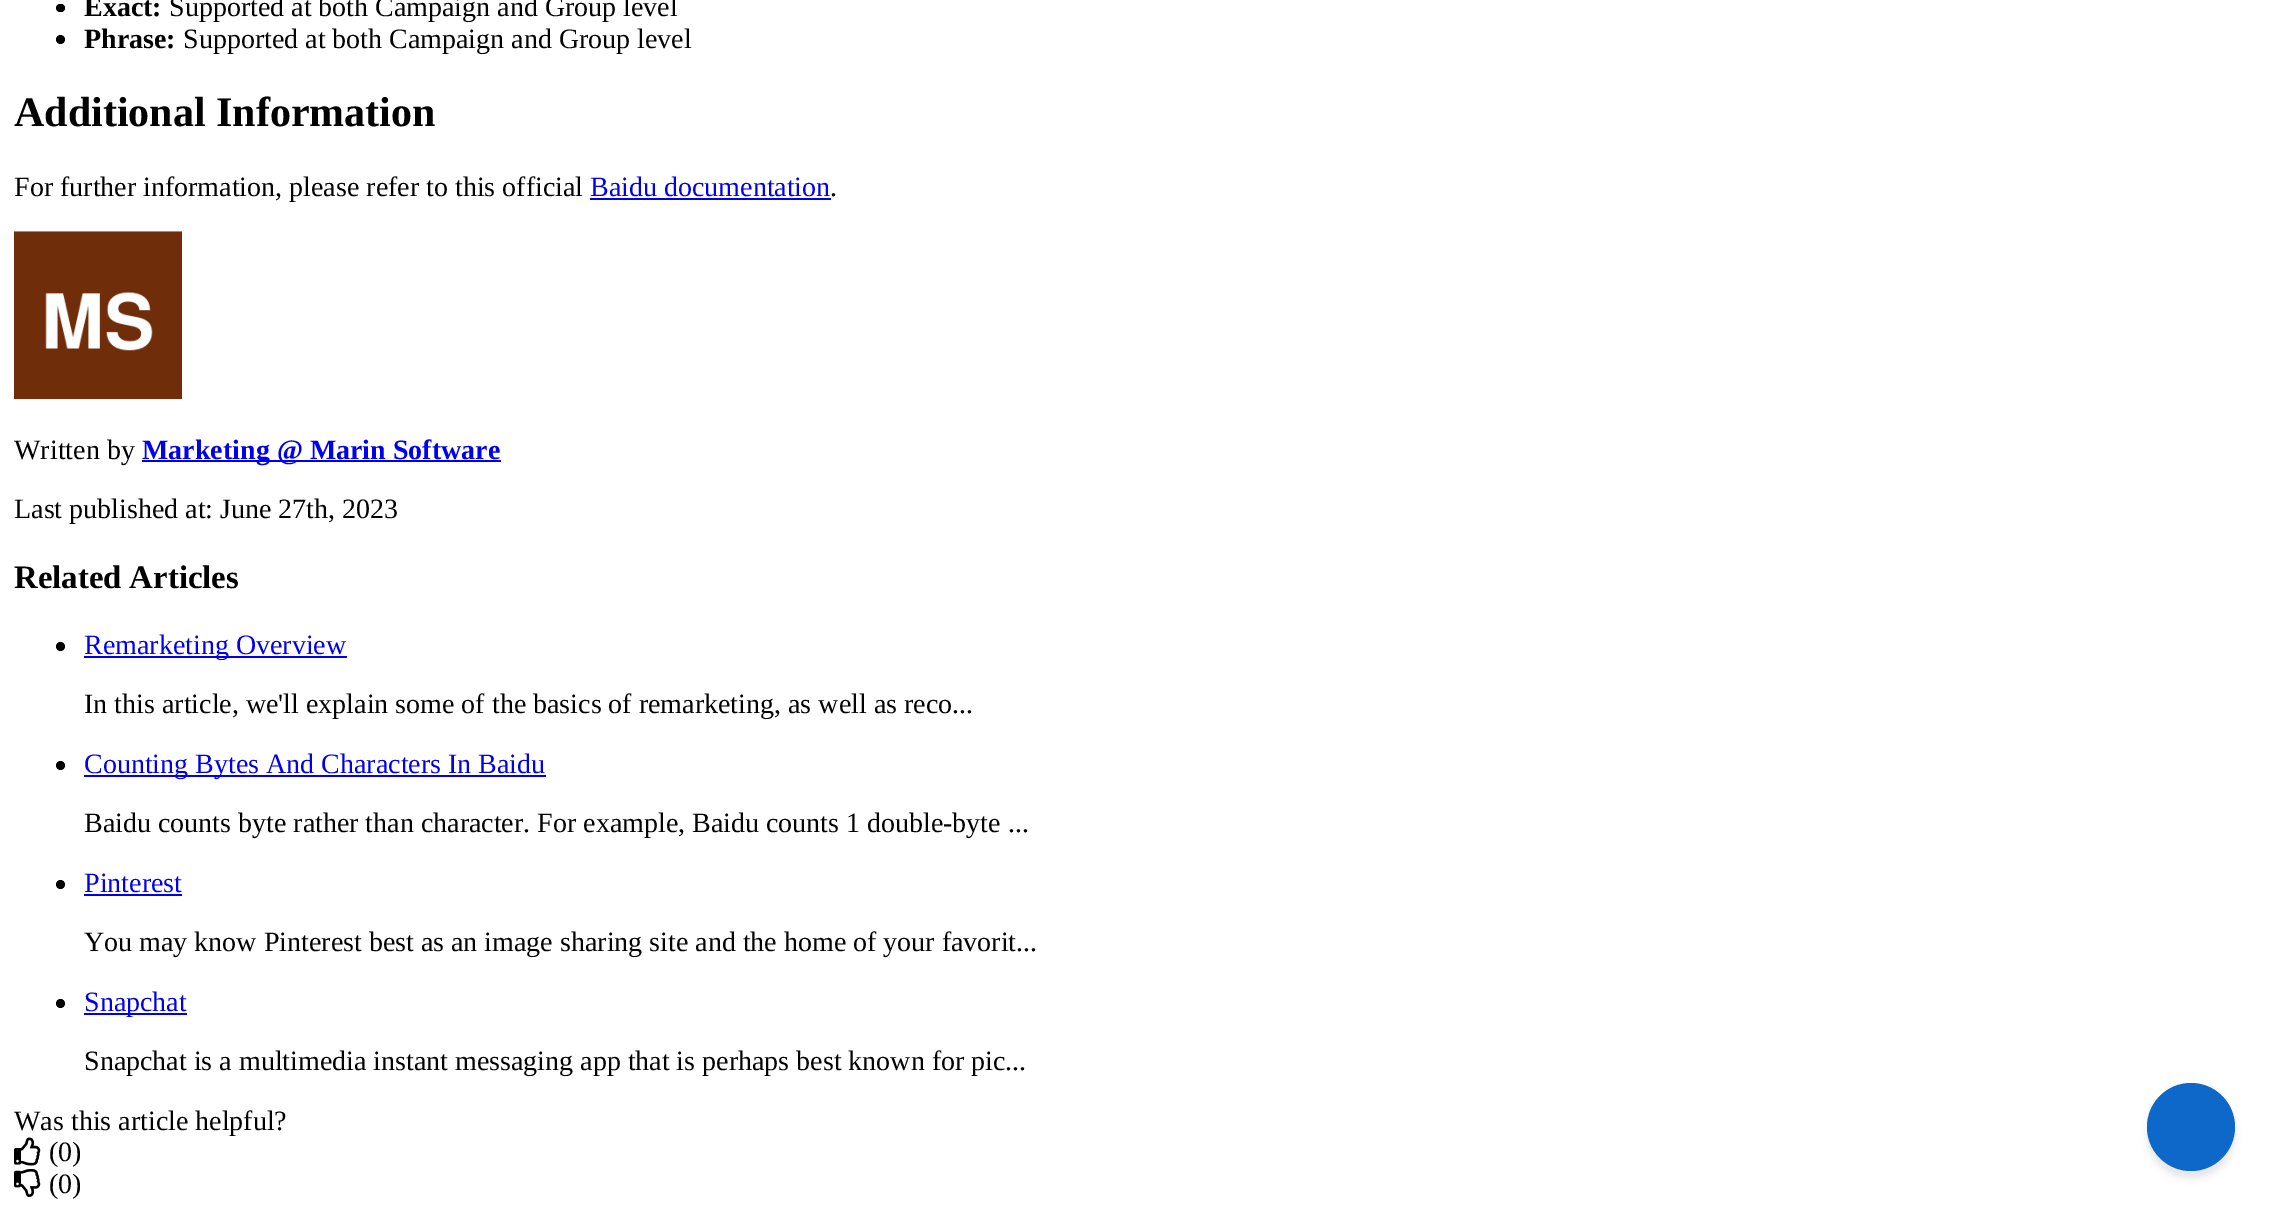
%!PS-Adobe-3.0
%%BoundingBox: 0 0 2295 1232
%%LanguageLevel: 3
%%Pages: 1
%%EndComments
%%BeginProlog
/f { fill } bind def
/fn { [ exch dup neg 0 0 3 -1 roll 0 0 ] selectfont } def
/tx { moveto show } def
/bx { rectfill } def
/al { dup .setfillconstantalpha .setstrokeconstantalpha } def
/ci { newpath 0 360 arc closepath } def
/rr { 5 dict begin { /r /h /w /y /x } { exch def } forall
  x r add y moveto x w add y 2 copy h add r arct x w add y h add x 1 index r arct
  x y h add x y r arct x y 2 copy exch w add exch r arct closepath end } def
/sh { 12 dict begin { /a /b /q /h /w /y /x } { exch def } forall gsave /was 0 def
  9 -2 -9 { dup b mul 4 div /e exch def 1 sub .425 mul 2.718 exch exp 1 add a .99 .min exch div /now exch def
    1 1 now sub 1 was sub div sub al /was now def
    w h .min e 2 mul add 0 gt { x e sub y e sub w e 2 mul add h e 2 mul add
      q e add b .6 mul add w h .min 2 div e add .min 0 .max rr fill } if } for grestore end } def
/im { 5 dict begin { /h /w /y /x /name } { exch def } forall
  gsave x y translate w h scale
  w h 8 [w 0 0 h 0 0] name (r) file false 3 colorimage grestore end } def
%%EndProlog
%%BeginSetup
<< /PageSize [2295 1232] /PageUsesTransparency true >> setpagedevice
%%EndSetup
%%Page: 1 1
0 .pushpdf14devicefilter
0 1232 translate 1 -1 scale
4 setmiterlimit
1 setgray
0 0 2295 1232 bx
0 setgray
56 4 9 8 4 rr f
/LiberationSerif-Bold 28 fn
(Exact:) 84 16 tx
/LiberationSerif-Regular 28 fn
(Supported at both Campaign and Group level) 169 16 tx
60.5 39.5 4.5 ci f
/LiberationSerif-Bold 28 fn
(Phrase:) 84 48 tx
/LiberationSerif-Regular 28 fn
(Supported at both Campaign and Group level) 183 48 tx
/LiberationSerif-Bold 42 fn
(Additional Information) 14 126 tx
/LiberationSerif-Regular 28 fn
(For further information, please refer to this official) 14 196 tx
0 0 0.933 setrgbcolor
(Baidu documentation) 590 196 tx
590 198 241 2 bx
0 setgray
(.) 830 196 tx
(image0.raw) 14 231 168 169 im
(Written by) 14 459 tx
0 0 0.933 setrgbcolor
142 460 359 2 bx
/LiberationSerif-Bold 28 fn
(Marketing @ Marin Software) 142 459 tx
/LiberationSerif-Regular 28 fn
0 setgray
(Last published at: June 27th, 2023) 14 518 tx
/LiberationSerif-Bold 32.75 fn
(Related Articles) 14 588 tx
60.5 646.5 4.5 ci f
0 0 0.933 setrgbcolor
84 656 263 2 bx
/LiberationSerif-Regular 28 fn
(Remarketing Overview) 84 654 tx
0 setgray
(In this article, we'll explain some of the basics of remarketing, as well as reco...) 84 713 tx
60.5 765.5 4.5 ci f
0 0 0.933 setrgbcolor
84 775 462 2 bx
(Counting Bytes And Characters In Baidu) 84 773 tx
0 setgray
(Baidu counts byte rather than character. For example, Baidu counts 1 double-byte ...) 84 832 tx
60.5 884.5 4.5 ci f
0 0 0.933 setrgbcolor
(Pinterest) 84 892 tx
84 894 98 2 bx
0 setgray
(You may know Pinterest best as an image sharing site and the home of your favorit...) 84 951 tx
60.5 1003.5 4.5 ci f
0 0 0.933 setrgbcolor
84 1013 103 2 bx
(Snapchat) 84 1011 tx
0 setgray
(Snapchat is a multimedia instant messaging app that is perhaps best known for pic...) 84 1070 tx
(Was this article helpful?) 14 1130 tx
(image1.raw) 14 1137 27 29 im
(\(0\)) 49 1161 tx
(image2.raw) 14 1169 27 28 im
(\(0\)) 49 1193 tx
2147 1090 88 88 44 3.5 0.1 sh
0.055 0.408 0.792 setrgbcolor
2191 1127 44 ci f
.poppdf14devicefilter showpage
%%EOF
